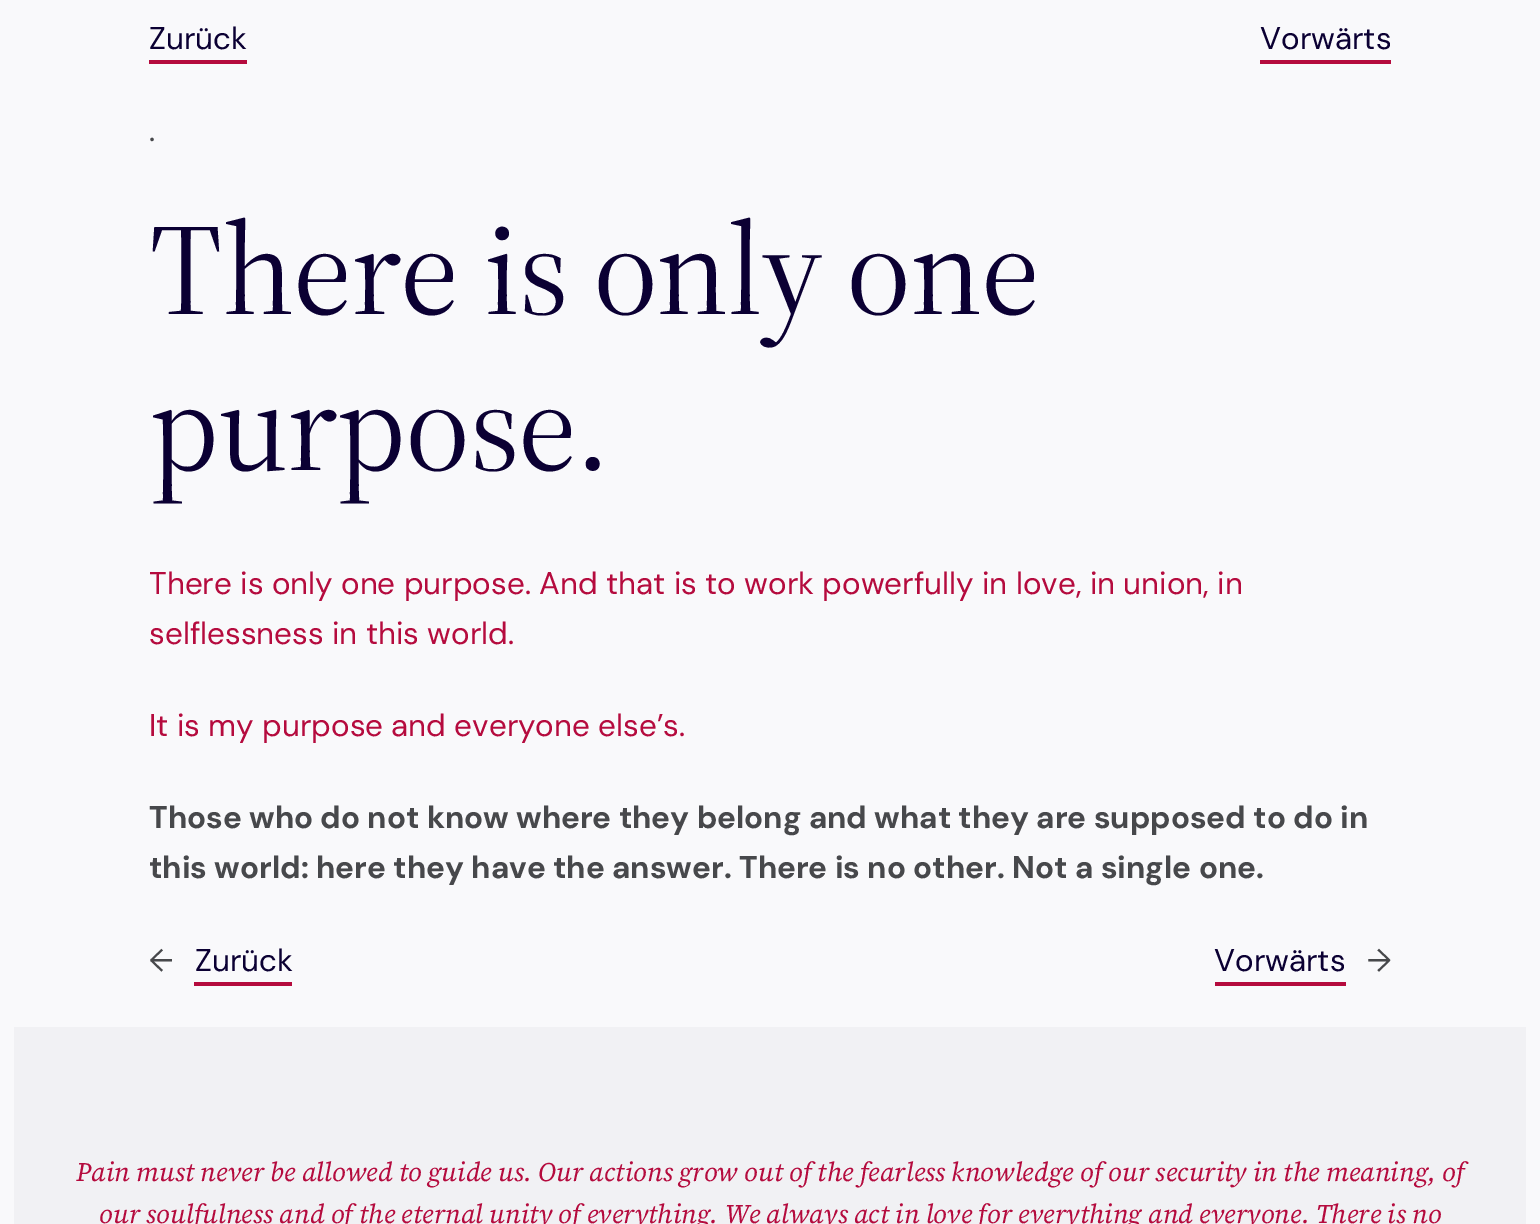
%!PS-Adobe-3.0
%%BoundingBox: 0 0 1540 1224
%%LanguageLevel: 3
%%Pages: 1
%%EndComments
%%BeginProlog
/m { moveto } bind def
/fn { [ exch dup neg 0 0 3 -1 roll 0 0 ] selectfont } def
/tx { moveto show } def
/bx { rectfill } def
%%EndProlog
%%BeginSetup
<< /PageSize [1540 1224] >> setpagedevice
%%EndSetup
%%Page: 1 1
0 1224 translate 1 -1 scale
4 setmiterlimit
0.976 0.976 0.984 setrgbcolor
0 0 1540 1224 bx
/DMSans-Regular 31.35 fn
0.043 0 0.2 setrgbcolor
(Zurück) 149 49 tx
0.71 0.043 0.243 setrgbcolor
149 60 98 4 bx
0.043 0 0.2 setrgbcolor
(Vorwärts) 1260 49 tx
0.71 0.043 0.243 setrgbcolor
1260 60 131 4 bx
0.278 0.282 0.294 setrgbcolor
(.) 149 141 tx
/SourceSerif4-Regular 129.75 fn
0.043 0 0.2 setrgbcolor
149 314 m -1.25 0 (There is only one) ashow
149 470 m -1.25 0 (purpose.) ashow
/DMSans-Regular 31.35 fn
0.71 0.043 0.243 setrgbcolor
(There is only one purpose. And that is to work powerfully in love, in union, in) 149 594 tx
(selflessness in this world.) 149 644 tx
(It is my purpose and everyone else’s.) 149 736 tx
/DMSans-Bold 31.35 fn
0.278 0.282 0.294 setrgbcolor
(Those who do not know where they belong and what they are supposed to do in) 149 828 tx
149 878 m 0.1 0 32 (this world: here they have the answer. There is no other. Not a single one.) widthshow
/DMSans-Regular 31.35 fn
(←) 149 971 tx
0.043 0 0.2 setrgbcolor
(Zurück) 195 971 tx
0.71 0.043 0.243 setrgbcolor
194 982 98 4 bx
0.043 0 0.2 setrgbcolor
(Vorwärts) 1214 971 tx
0.71 0.043 0.243 setrgbcolor
1215 982 131 4 bx
0.278 0.282 0.294 setrgbcolor
(→) 1367 971 tx
0.945 0.945 0.957 setrgbcolor
14 1027 1512 197 bx
/SourceSerif4-Italic 26.72 fn
0.71 0.043 0.243 setrgbcolor
(Pain must never be allowed to guide us. Our actions grow out of the fearless knowledge of our security in the meaning, of) 76 1181 tx
(our soulfulness and of the eternal unity of everything. We always act in love for everything and everyone. There is no) 99 1223 tx
showpage
%%EOF
